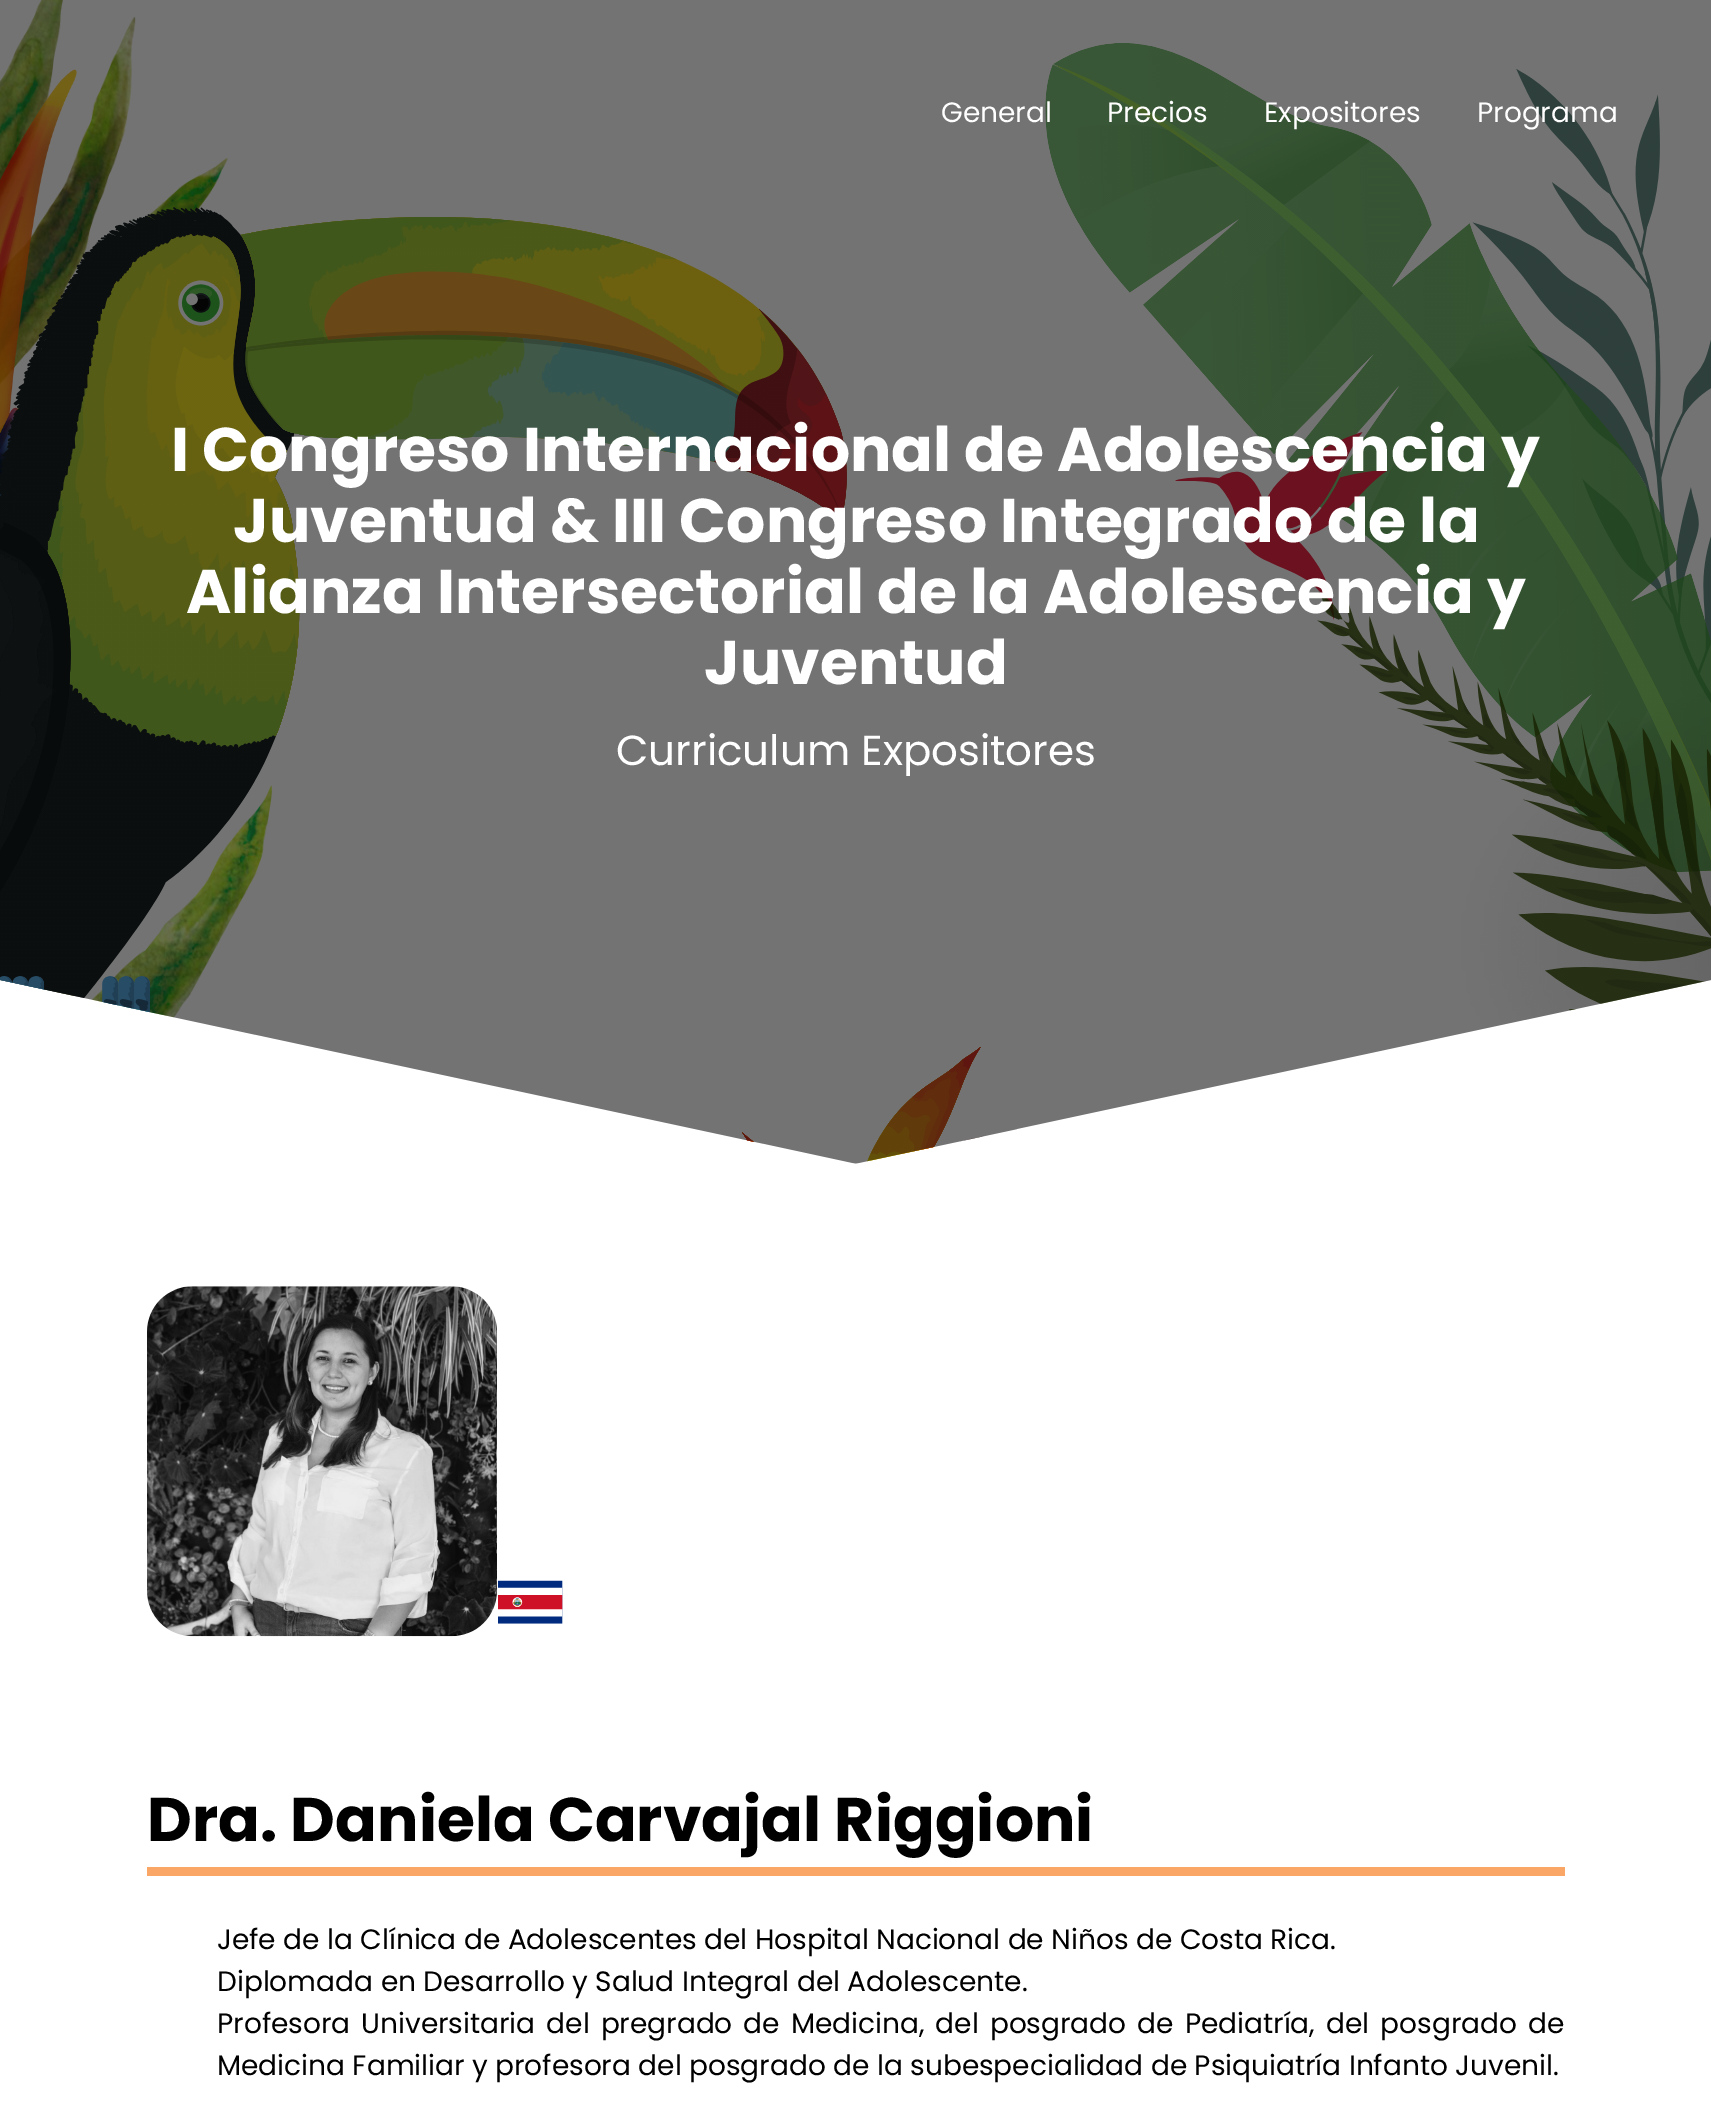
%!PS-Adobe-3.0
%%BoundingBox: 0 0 1711 2110
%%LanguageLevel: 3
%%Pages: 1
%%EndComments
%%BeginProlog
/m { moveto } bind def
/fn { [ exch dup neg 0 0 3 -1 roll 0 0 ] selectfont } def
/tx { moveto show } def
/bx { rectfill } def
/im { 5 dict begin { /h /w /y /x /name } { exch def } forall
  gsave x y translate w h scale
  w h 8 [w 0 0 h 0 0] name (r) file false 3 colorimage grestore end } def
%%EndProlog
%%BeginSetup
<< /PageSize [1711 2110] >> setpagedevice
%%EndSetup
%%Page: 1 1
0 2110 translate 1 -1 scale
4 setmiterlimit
1 setgray
0 0 1711 2110 bx
(image0.raw) 0 0 1711 1164 im
/Poppins-Regular 28 fn
(General) 941 122 tx
(Precios) 1107 122 tx
(Expositores) 1264 122 tx
(Programa) 1477 122 tx
/Poppins-Bold 61.6 fn
(I Congreso Internacional de Adolescencia y) 171 471 tx
(Juventud & III Congreso Integrado de la) 233 542 tx
(Alianza Intersectorial de la Adolescencia y) 186 613 tx
(Juventud) 704 684 tx
/Poppins-Regular 42 fn
(Curriculum Expositores) 616 765 tx
(image1.raw) 147 1286 350 351 im
(image2.raw) 498 1580 65 44 im
/Poppins-Bold 61.6 fn
0 setgray
(Dra. Daniela Carvajal Riggioni) 147 1841 tx
0.98 0.651 0.4 setrgbcolor
147 1867 1418 9 bx
/Poppins-Regular 28 fn
0 setgray
(Jefe de la Clínica de Adolescentes del Hospital Nacional de Niños de Costa Rica.) 217 1949 tx
(Diplomada en Desarrollo y Salud Integral del Adolescente.) 217 1991 tx
217 2033 m 3.6 0 32 (Profesora Universitaria del pregrado de Medicina, del posgrado de Pediatría, del posgrado de) widthshow
(Medicina Familiar y profesora del posgrado de la subespecialidad de Psiquiatría Infanto Juvenil.) 217 2075 tx
showpage
%%EOF
